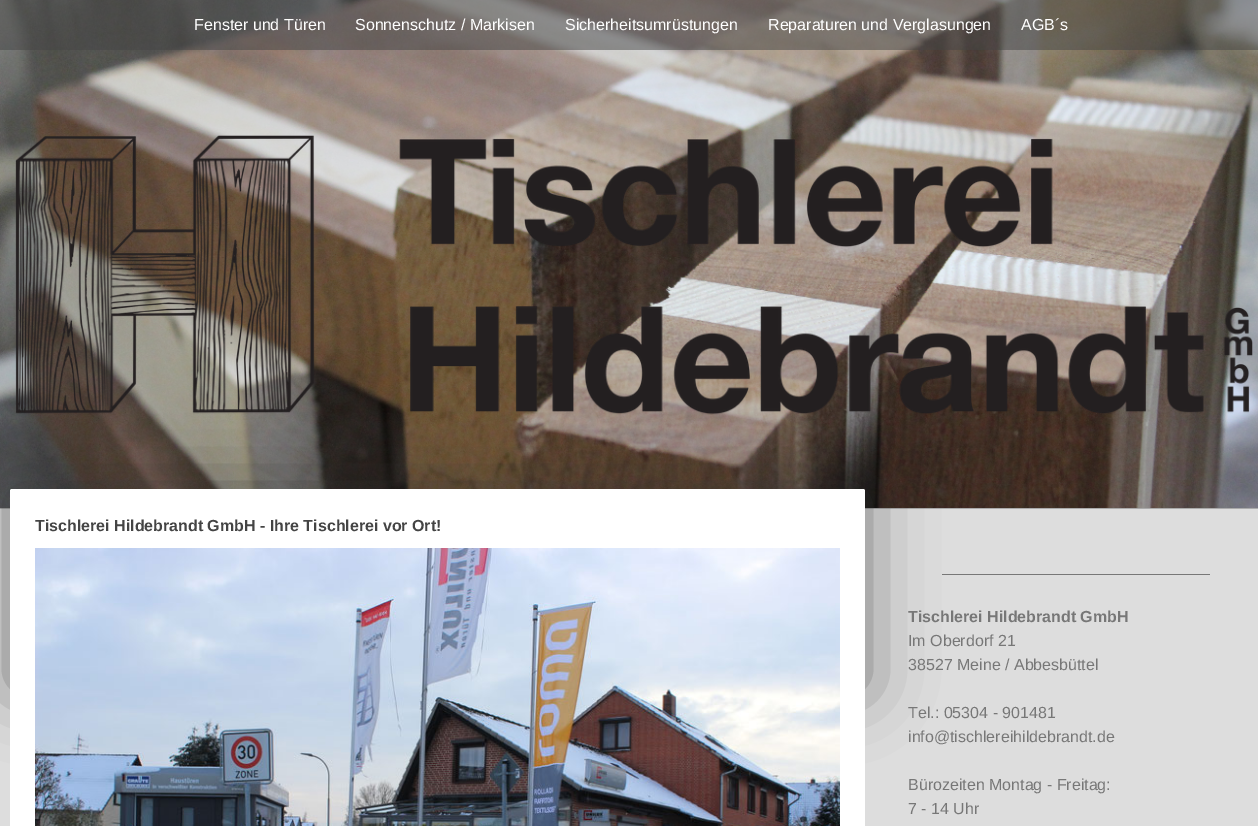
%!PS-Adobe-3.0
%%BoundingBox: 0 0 1258 826
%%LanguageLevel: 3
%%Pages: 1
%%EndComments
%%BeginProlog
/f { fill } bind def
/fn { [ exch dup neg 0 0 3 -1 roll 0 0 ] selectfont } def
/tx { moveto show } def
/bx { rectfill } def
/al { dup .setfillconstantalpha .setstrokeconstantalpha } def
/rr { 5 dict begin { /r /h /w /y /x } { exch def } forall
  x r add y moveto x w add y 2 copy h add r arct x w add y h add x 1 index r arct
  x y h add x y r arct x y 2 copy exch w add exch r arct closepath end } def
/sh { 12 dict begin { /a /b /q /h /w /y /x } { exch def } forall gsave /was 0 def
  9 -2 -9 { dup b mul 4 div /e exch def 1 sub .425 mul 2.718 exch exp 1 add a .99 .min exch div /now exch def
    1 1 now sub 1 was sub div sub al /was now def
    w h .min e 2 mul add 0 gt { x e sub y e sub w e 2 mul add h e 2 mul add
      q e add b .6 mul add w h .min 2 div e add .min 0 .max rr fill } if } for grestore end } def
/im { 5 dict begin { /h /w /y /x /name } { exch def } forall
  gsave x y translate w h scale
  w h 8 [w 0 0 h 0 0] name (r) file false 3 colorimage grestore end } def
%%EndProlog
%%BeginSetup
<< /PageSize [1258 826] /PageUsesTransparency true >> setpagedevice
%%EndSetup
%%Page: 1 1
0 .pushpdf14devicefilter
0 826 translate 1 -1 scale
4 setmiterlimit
0.867 setgray
0 0 1258 826 bx
(image0.raw) 0 0 1258 508 im
0.5 al
0.267 setgray
0 0 1258 50 bx
/LiberationSans-Regular 16 fn
1 al
1 setgray
(Fenster und Türen) 194 30 tx
(Sonnenschutz / Markisen) 355 30 tx
(Sicherheitsumrüstungen) 565 30 tx
(Reparaturen und Verglasungen) 768 30 tx
(AGB´s) 1021 30 tx
(image1.raw) 15 135 1238 280 im
0.667 setgray
0 508 1258 1 bx
0.467 setgray
942 574 268 1 bx
0.2 setgray
10 489 855 200 0 34 0.6 sh
1 setgray
10 489 855 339 2 rr f
/LiberationSans-Bold 16 fn
0.267 setgray
(Tischlerei Hildebrandt GmbH - Ihre Tischlerei vor Ort!) 35 531 tx
(image2.raw) 35 548 805 278 im
0.467 setgray
(Tischlerei Hildebrandt GmbH) 908 622 tx
/LiberationSans-Regular 16 fn
(Im Oberdorf 21) 908 646 tx
(38527 Meine / Abbesbüttel) 908 670 tx
(Tel.: 05304 - 901481) 908 718 tx
(info@tischlereihildebrandt.de) 908 742 tx
(Bürozeiten Montag - Freitag:) 908 790 tx
(7 - 14 Uhr) 908 814 tx
.poppdf14devicefilter showpage
%%EOF
